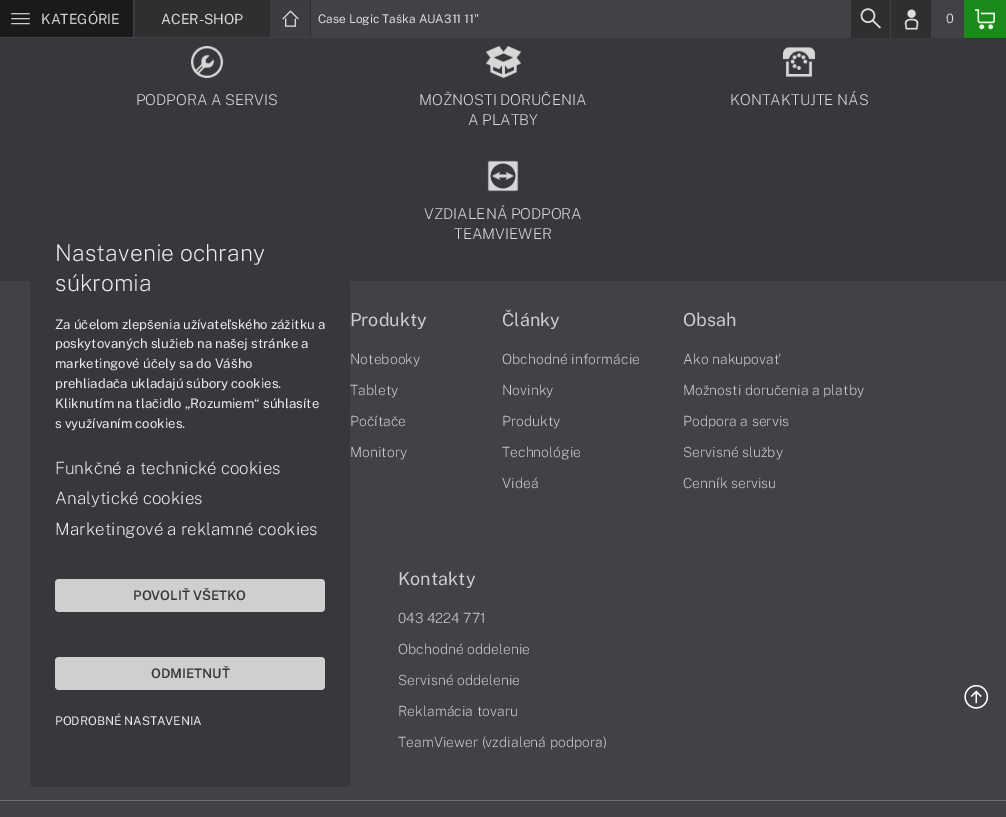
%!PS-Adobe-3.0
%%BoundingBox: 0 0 1006 817
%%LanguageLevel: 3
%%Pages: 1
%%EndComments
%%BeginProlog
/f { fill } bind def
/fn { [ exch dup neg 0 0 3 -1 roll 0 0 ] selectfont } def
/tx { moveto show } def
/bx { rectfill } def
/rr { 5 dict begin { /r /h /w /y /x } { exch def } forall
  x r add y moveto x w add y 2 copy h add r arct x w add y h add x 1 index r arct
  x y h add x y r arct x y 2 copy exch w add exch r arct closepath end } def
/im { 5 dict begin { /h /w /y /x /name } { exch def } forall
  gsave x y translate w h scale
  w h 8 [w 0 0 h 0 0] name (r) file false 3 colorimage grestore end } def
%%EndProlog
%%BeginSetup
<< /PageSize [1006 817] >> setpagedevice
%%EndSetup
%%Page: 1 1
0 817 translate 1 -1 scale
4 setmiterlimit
0.255 0.255 0.275 setrgbcolor
0 0 1006 817 bx
0.102 setgray
0 0 133 37 bx
(image0.raw) 11 13 19 12 im
/PublicSans-Regular 14 fn
0.8 setgray
(KATEGÓRIE) 41 24 tx
0.22 0.22 0.235 setrgbcolor
134 0 1 38 bx
0.184 setgray
135 0 135 37 bx
0.843 0.843 0.847 setrgbcolor
(ACER-SHOP) 161 24 tx
0.239 0.239 0.255 setrgbcolor
270 0 40 37 bx
0.184 setgray
310 0 1 37 bx
(image1.raw) 282 10 17 17 im
/PublicSans-Regular 12 fn
0.867 setgray
(Case Logic Taška AUA311 11") 318 23 tx
0.184 setgray
851 0 39 38 bx
(image2.raw) 860 8 21 21 im
891 0 40 38 bx
(image3.raw) 904 9 15 21 im
/PublicSans-Light 13 fn
0.867 setgray
(0) 946 23 tx
0.102 0.541 0.106 setrgbcolor
964 0 42 38 bx
(image4.raw) 975 9 20 21 im
0.22 0.22 0.235 setrgbcolor
0 38 1006 243 bx
(image5.raw) 191 46 32 32 im
/PublicSans-ExtraLight 15 fn
0.843 0.843 0.847 setrgbcolor
(PODPORA A SERVIS) 136 105 tx
(image6.raw) 486 46 35 32 im
(MOŽNOSTI DORUČENIA) 419 105 tx
(A PLATBY) 468 125 tx
(image7.raw) 783 46 32 32 im
(KONTAKTUJTE NÁS) 730 105 tx
(image8.raw) 487 160 32 32 im
(VZDIALENÁ PODPORA) 424 219 tx
(TEAMVIEWER) 454 239 tx
/PublicSans-Regular 18 fn
0.8 setgray
(Produkty) 350 326 tx
/PublicSans-ExtraLight 14 fn
(Notebooky) 350 364 tx
(Tablety) 350 395 tx
(Počítače) 350 426 tx
(Monitory) 350 457 tx
/PublicSans-Regular 18 fn
(Články) 502 326 tx
/PublicSans-ExtraLight 14 fn
(Obchodné informácie) 502 364 tx
(Novinky) 502 395 tx
(Produkty) 502 426 tx
(Technológie) 502 457 tx
(Videá) 502 488 tx
/PublicSans-Regular 18 fn
(Obsah) 683 326 tx
/PublicSans-ExtraLight 14 fn
(Ako nakupovať) 683 364 tx
(Možnosti doručenia a platby) 683 395 tx
(Podpora a servis) 683 426 tx
(Servisné služby) 683 457 tx
(Cenník servisu) 683 488 tx
/PublicSans-Regular 18 fn
(Kontakty) 398 585 tx
/PublicSans-ExtraLight 14 fn
(043 4224 771) 398 623 tx
(Obchodné oddelenie) 398 654 tx
(Servisné oddelenie) 398 685 tx
(Reklamácia tovaru) 398 716 tx
(TeamViewer \(vzdialená podpora\)) 398 747 tx
0.439 setgray
0 800 1006 1 bx
0.22 0.22 0.235 setrgbcolor
30 207 320 580 4 rr f
/PublicSans-ExtraLight 23 fn
0.922 0.922 0.925 setrgbcolor
(Nastavenie ochrany) 55 261 tx
(súkromia) 55 291 tx
/PublicSans-Regular 13.2 fn
(Za účelom zlepšenia užívateľského zážitku a) 55 329 tx
(poskytovaných služieb na našej stránke a) 55 348 tx
(marketingové účely sa do Vášho) 55 368 tx
(prehliadača ukladajú súbory cookies.) 55 388 tx
(Kliknutím na tlačidlo „Rozumiem“ súhlasíte) 55 408 tx
(s využívaním cookies.) 55 428 tx
/PublicSans-ExtraLight 17 fn
(Funkčné a technické cookies) 55 474 tx
(Analytické cookies) 55 504 tx
(Marketingové a reklamné cookies) 55 535 tx
0.812 0.812 0.816 setrgbcolor
55 579 270 33 4 rr f
/PublicSans-SemiBold 13.2 fn
0.22 0.22 0.235 setrgbcolor
(POVOLIŤ VŠETKO) 133 600 tx
0.812 0.812 0.816 setrgbcolor
55 657 270 33 4 rr f
0.22 0.22 0.235 setrgbcolor
(ODMIETNUŤ) 151 678 tx
/PublicSans-Regular 12 fn
0.922 0.922 0.925 setrgbcolor
(PODROBNÉ NASTAVENIA) 55 725 tx
(image9.raw) 964 684 25 25 im
showpage
%%EOF
